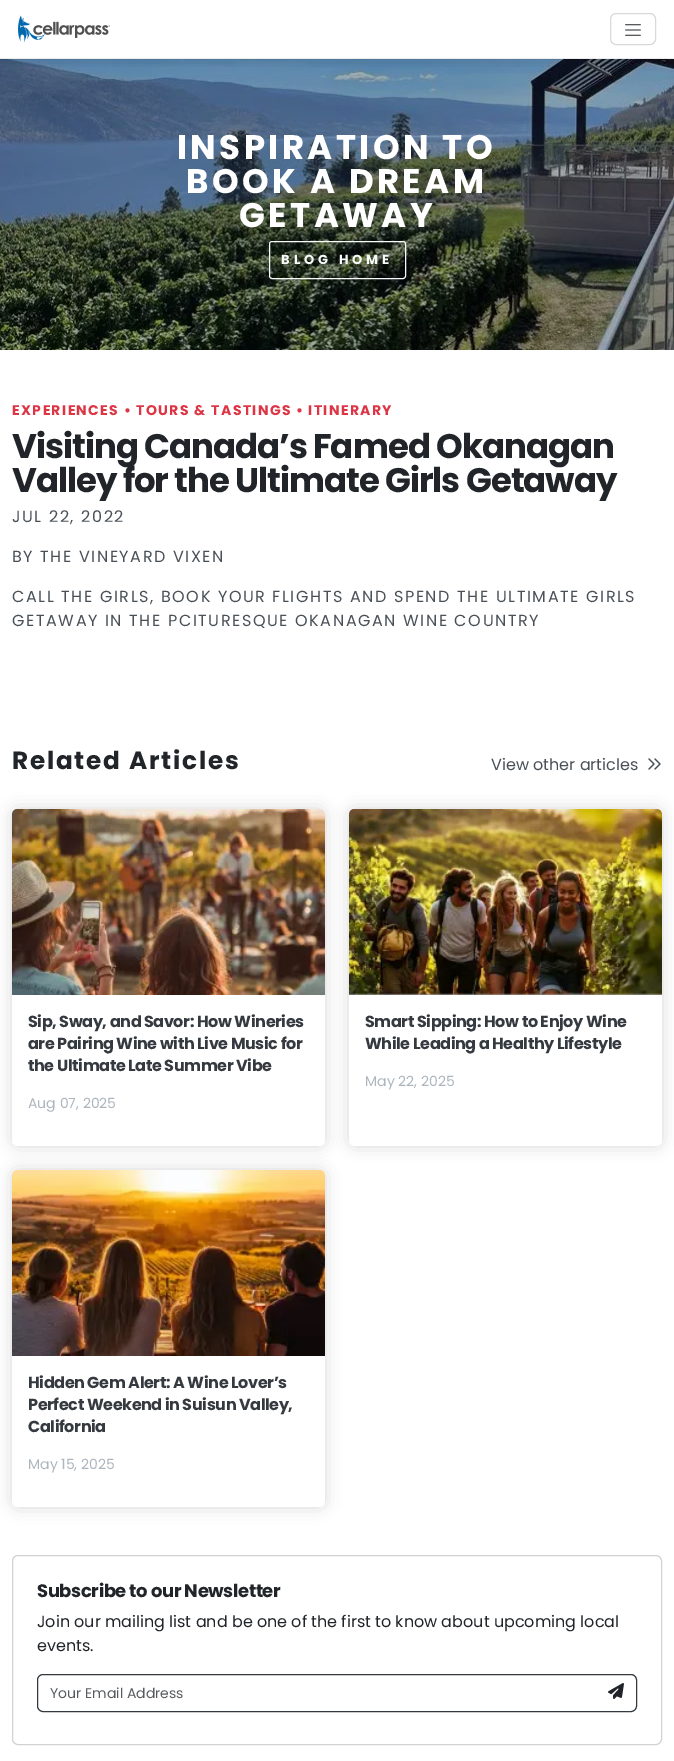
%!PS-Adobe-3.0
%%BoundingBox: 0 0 674 1761
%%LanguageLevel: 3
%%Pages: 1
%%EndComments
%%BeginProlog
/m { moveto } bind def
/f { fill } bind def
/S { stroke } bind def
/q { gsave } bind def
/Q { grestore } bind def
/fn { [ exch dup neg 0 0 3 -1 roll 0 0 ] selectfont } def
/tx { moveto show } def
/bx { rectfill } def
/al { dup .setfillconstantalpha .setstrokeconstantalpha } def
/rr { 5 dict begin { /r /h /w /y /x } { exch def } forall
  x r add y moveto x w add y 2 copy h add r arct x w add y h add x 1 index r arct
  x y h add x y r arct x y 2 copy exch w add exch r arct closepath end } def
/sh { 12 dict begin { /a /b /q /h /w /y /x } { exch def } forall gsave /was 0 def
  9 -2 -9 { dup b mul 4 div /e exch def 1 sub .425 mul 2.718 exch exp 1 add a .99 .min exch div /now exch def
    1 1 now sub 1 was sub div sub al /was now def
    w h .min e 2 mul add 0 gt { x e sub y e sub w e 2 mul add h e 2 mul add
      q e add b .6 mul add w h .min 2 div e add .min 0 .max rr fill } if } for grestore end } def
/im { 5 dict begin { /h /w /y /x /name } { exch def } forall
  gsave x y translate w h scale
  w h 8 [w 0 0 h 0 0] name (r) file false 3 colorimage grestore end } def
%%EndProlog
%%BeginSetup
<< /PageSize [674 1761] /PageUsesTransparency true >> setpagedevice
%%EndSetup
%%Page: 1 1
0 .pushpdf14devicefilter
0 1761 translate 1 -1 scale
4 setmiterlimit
1 setgray
0 0 674 1761 bx
(image2.raw) 0 59 674 291 im
q
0 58 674 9 rectclip
0 setgray
0 0 674 58 0 8 0.15 sh
Q
(image0.raw) 18 15 92 28 im
0.851 setgray
610.5 13.5 45 31 5.5 rr S
(image1.raw) 625 24 16 12 im
/Poppins-Bold 34 fn
1 setgray
177 159 m 3.4 0 (INSPIRATION TO) ashow
186 193 m 3.4 0 (BOOK A DREAM) ashow
239 227 m 3.4 0 (GETAWAY) ashow
0.973 0.976 0.98 setrgbcolor
269.5 241.5 136 37 2.5 rr S
/Poppins-Bold 13 fn
281 264 m 4 0 (BLOG HOME) ashow
/Poppins-Bold 14 fn
0.863 0.208 0.271 setrgbcolor
12 415 m 1.4 0 (EXPERIENCES) ashow
124 415 m 1.4 0 (•) ashow
136 415 m 1.4 0 (TOURS & TASTINGS) ashow
296 415 m 1.4 0 (•) ashow
308 415 m 1.4 0 (ITINERARY) ashow
/Poppins-Bold 34 fn
0.129 0.145 0.161 setrgbcolor
12 458 m -1 0 (Visiting Canada’s Famed Okanagan) ashow
12 492 m -1 0 (Valley for the Ultimate Girls Getaway) ashow
/Poppins-Regular 16 fn
0.286 0.314 0.341 setrgbcolor
12 522 m 1.6 0 (JUL 22, 2022) ashow
12 562 m 1.6 0 (BY THE VINEYARD VIXEN) ashow
12 602 m 1.6 0 (CALL THE GIRLS, BOOK YOUR FLIGHTS AND SPEND THE ULTIMATE GIRLS) ashow
12 626 m 1.6 0 (GETAWAY IN THE PCITURESQUE OKANAGAN WINE COUNTRY) ashow
/Poppins-Bold 24.75 fn
0.129 0.145 0.161 setrgbcolor
12 769 m 1.75 0 (Related Articles) ashow
/Poppins-Regular 16 fn
0.286 0.314 0.341 setrgbcolor
(View other articles) 491 770 tx
(image3.raw) 648 758 13 12 im
0 setgray
12 809 313 337 6 8 0.15 sh
1 setgray
12 809 313 337 6 rr f
(image4.raw) 12 809 313 186 im
/Poppins-Bold 16 fn
0.204 0.227 0.251 setrgbcolor
28 1027 m -0.4 0 (Sip, Sway, and Savor: How Wineries) ashow
28 1049 m -0.4 0 (are Pairing Wine with Live Music for) ashow
28 1071 m -0.4 0 (the Ultimate Late Summer Vibe) ashow
/Poppins-Regular 14 fn
0.678 0.71 0.741 setrgbcolor
(Aug 07, 2025) 28 1108 tx
0 setgray
349 809 313 337 6 8 0.15 sh
1 setgray
349 809 313 337 6 rr f
(image5.raw) 349 809 313 186 im
/Poppins-Bold 16 fn
0.204 0.227 0.251 setrgbcolor
365 1027 m -0.4 0 (Smart Sipping: How to Enjoy Wine) ashow
365 1049 m -0.4 0 (While Leading a Healthy Lifestyle) ashow
/Poppins-Regular 14 fn
0.678 0.71 0.741 setrgbcolor
(May 22, 2025) 365 1086 tx
0 setgray
12 1170 313 337 6 8 0.15 sh
1 setgray
12 1170 313 337 6 rr f
(image6.raw) 12 1170 313 186 im
/Poppins-Bold 16 fn
0.204 0.227 0.251 setrgbcolor
28 1388 m -0.4 0 (Hidden Gem Alert: A Wine Lover’s) ashow
28 1410 m -0.4 0 (Perfect Weekend in Suisun Valley,) ashow
28 1432 m -0.4 0 (California) ashow
/Poppins-Regular 14 fn
0.678 0.71 0.741 setrgbcolor
(May 15, 2025) 28 1469 tx
0.824 setgray
12.5 1555.5 649 189 5.5 rr S
/Poppins-Bold 18 fn
0.129 0.145 0.161 setrgbcolor
37 1597 m -0.4 0 (Subscribe to our Newsletter) ashow
/Poppins-Regular 16 fn
(Join our mailing list and be one of the first to know about upcoming local) 37 1627 tx
(events.) 37 1651 tx
0.204 0.227 0.251 setrgbcolor
37.5 1674.5 599 37 5.5 rr S
/Poppins-Regular 14 fn
0.349 0.361 0.373 setrgbcolor
(Your Email Address) 50 1698 tx
(image7.raw) 608 1683 16 16 im
.poppdf14devicefilter showpage
%%EOF
